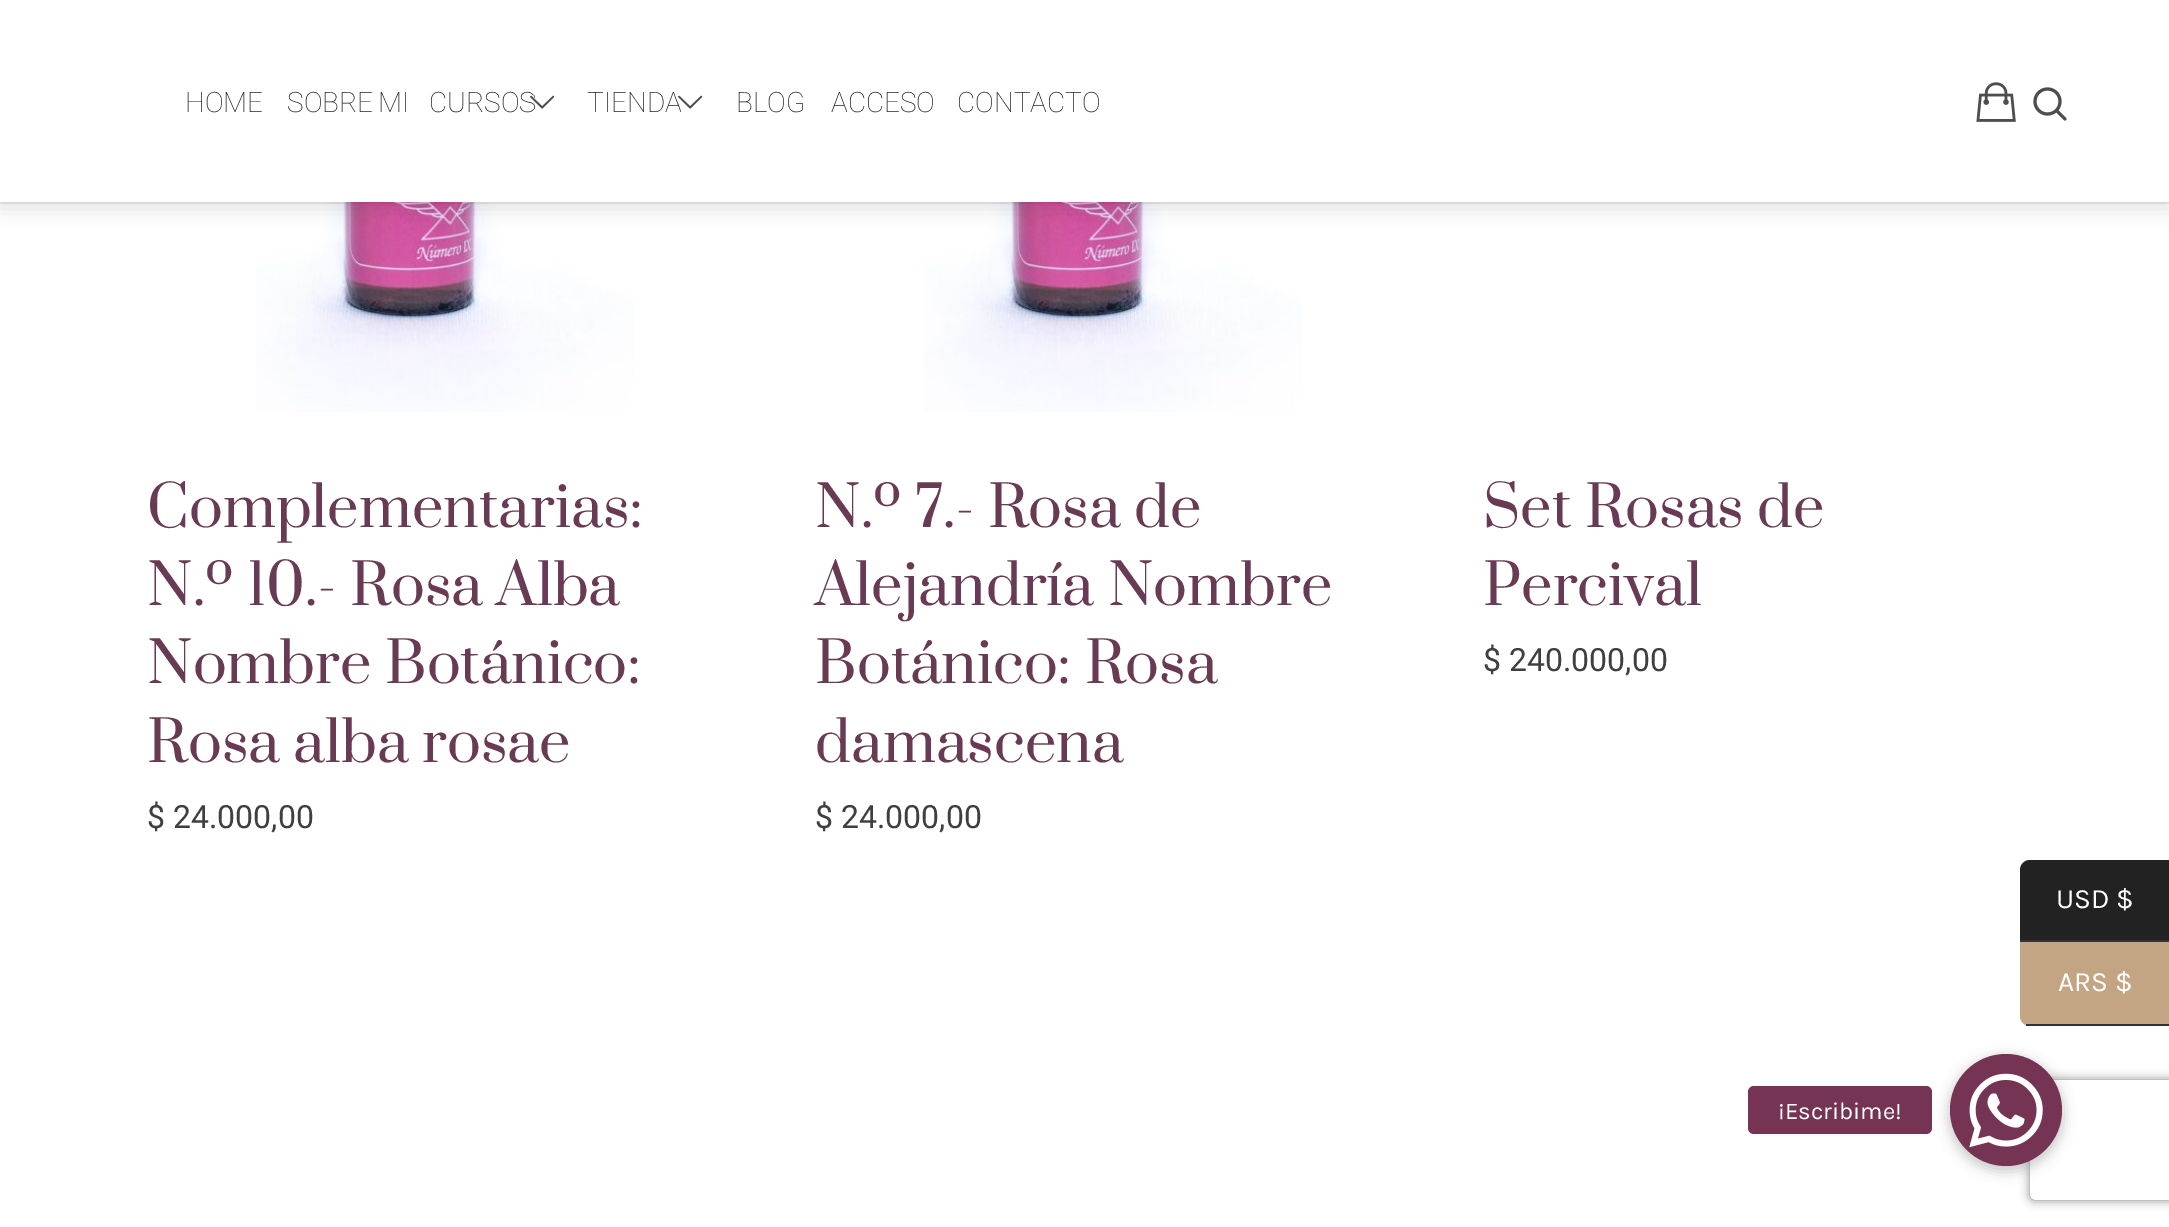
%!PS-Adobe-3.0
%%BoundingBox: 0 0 2169 1227
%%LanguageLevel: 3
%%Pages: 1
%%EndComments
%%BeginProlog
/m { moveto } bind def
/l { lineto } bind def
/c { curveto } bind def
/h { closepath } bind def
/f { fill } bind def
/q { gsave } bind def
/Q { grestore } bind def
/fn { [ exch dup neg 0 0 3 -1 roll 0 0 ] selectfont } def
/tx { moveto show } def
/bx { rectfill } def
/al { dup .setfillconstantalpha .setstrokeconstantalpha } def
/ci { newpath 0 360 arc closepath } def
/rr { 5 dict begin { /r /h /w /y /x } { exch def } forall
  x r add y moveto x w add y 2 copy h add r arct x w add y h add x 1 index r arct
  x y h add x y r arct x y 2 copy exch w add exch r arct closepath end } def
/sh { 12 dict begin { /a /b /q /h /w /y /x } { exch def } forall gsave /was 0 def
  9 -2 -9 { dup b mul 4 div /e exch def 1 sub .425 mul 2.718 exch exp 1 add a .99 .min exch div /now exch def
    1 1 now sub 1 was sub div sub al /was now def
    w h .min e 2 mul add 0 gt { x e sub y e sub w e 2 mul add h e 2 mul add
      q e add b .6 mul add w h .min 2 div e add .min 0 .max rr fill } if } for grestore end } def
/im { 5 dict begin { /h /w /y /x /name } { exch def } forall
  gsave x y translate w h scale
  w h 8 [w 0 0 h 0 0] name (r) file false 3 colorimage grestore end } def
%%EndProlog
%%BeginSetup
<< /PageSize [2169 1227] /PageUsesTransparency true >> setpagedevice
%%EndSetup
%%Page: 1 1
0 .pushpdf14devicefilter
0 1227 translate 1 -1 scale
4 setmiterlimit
1 setgray
0 0 2169 1227 bx
(image4.raw) 256 202 378 210 im
(image5.raw) 924 202 378 210 im
0.08 al
0.133 setgray
0 202 2169 2 bx
1 al
0.067 setgray
0 6 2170 202 0 10 0.12 sh
1 setgray
0 0 2169 202 bx
/Roboto-Thin 28 fn
0.133 setgray
(HOME) 185 112 tx
287 112 m -2 0 32 (SOBRE MI) widthshow
(CURSOS) 429 112 tx
(image0.raw) 530 95 25 14 im
(TIENDA) 587 112 tx
(image1.raw) 678 95 25 14 im
(BLOG) 736 112 tx
(ACCESO) 831 112 tx
(CONTACTO) 957 112 tx
(image2.raw) 1976 82 40 40 im
(image3.raw) 2033 87 34 34 im
/Prata-Regular 56 fn
0.408 0.227 0.325 setrgbcolor
(Complementarias:) 147 527 tx
(N.º 10.- Rosa Alba) 147 605 tx
(Nombre Botánico:) 147 683 tx
(Rosa alba rosae) 147 762 tx
/Roboto-Regular 32 fn
0.247 setgray
($ 24.000,00) 147 828 tx
/Prata-Regular 56 fn
0.408 0.227 0.325 setrgbcolor
(N.º 7.- Rosa de) 815 527 tx
(Alejandría Nombre) 815 605 tx
(Botánico: Rosa) 815 683 tx
(damascena) 815 762 tx
/Roboto-Regular 32 fn
0.247 setgray
($ 24.000,00) 815 828 tx
/Prata-Regular 56 fn
0.408 0.227 0.325 setrgbcolor
(Set Rosas de) 1483 527 tx
(Percival) 1483 605 tx
/Roboto-Regular 32 fn
0.247 setgray
($ 240.000,00) 1483 671 tx
0.133 setgray
2030 860 m 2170 860 l 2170 942 l 2020 942 l 2020 870 l 2020 864.5 2024.5 860 2030 860 c h f
0.2 setgray
2020 940 149 2 bx
/Karla-Regular 28 fn
1 setgray
(USD $) 2056 908 tx
0.769 0.647 0.514 setrgbcolor
2020 942 m 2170 942 l 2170 1026 l 2030 1026 l 2024.5 1026 2020 1021.5 2020 1016 c h f
0.2 setgray
2026 1024 143 2 bx
1 setgray
(ARS $) 2058 991 tx
0 setgray
1948 1056 116 116 58 6 0.2 sh
q
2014 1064 m 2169 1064 l 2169 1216 l 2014 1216 l h 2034 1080 m 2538 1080 l 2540 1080 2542 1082 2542 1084 c 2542 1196 l 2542 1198 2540 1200 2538 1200 c 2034 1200 l 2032 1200 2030 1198 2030 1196 c 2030 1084 l 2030 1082 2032 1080 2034 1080 c h eoclip newpath
0.502 setgray
2030 1080 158 120 4 5 1 sh
Q
0.459 0.204 0.329 setrgbcolor
2006 1110 56 ci f
1748 1086 184 48 6 rr f
/Karla-Regular 24 fn
1 setgray
(¡Escribime!) 1778 1119 tx
(image6.raw) 1969 1073 74 75 im
.poppdf14devicefilter showpage
%%EOF
